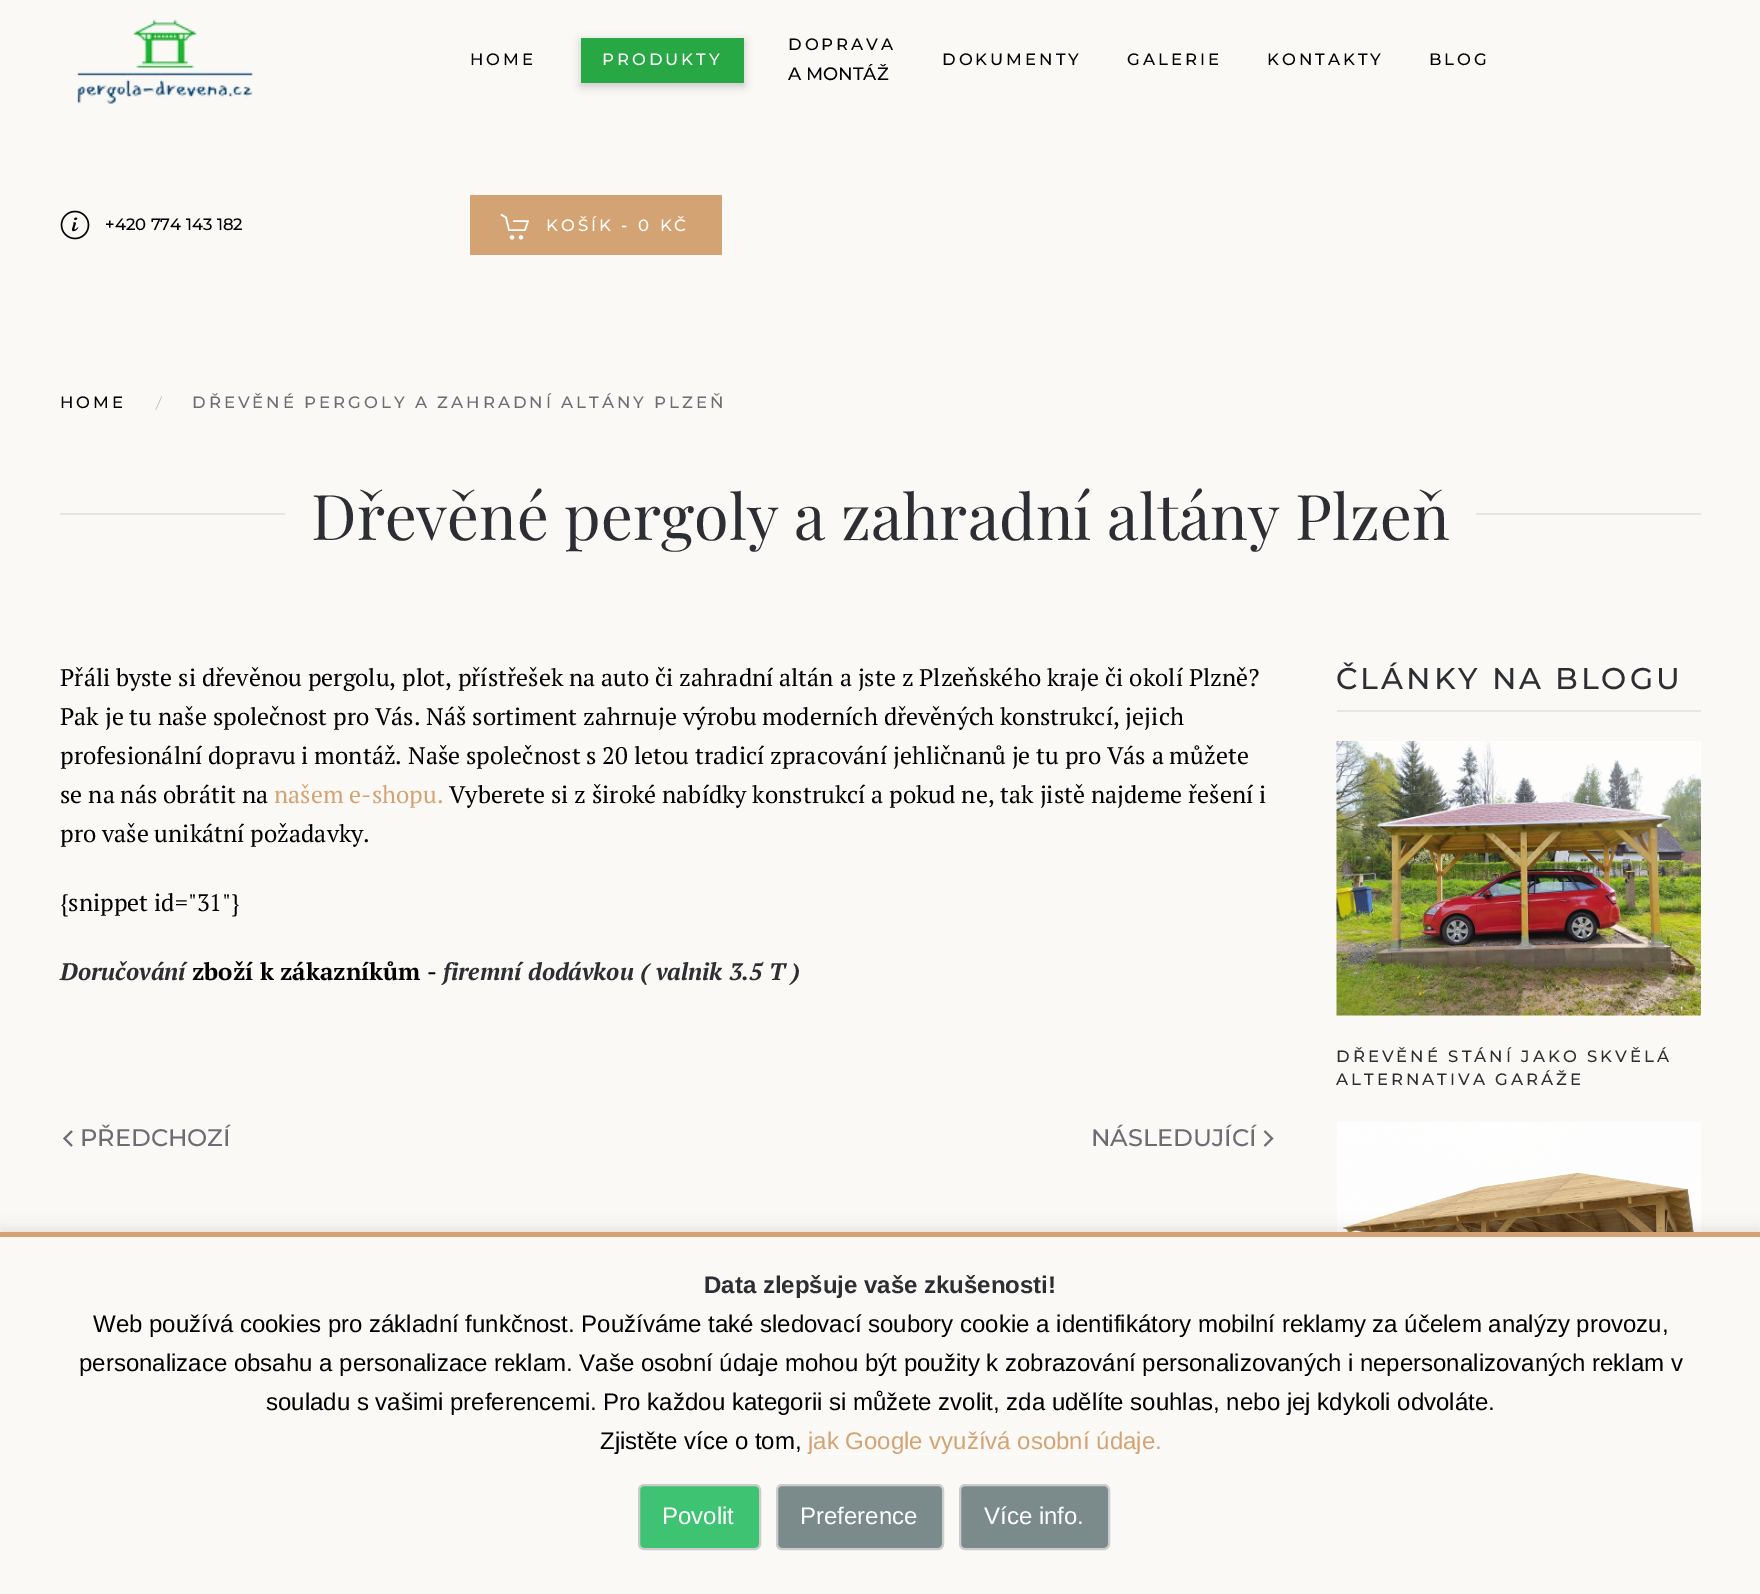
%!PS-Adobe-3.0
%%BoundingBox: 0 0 1760 1594
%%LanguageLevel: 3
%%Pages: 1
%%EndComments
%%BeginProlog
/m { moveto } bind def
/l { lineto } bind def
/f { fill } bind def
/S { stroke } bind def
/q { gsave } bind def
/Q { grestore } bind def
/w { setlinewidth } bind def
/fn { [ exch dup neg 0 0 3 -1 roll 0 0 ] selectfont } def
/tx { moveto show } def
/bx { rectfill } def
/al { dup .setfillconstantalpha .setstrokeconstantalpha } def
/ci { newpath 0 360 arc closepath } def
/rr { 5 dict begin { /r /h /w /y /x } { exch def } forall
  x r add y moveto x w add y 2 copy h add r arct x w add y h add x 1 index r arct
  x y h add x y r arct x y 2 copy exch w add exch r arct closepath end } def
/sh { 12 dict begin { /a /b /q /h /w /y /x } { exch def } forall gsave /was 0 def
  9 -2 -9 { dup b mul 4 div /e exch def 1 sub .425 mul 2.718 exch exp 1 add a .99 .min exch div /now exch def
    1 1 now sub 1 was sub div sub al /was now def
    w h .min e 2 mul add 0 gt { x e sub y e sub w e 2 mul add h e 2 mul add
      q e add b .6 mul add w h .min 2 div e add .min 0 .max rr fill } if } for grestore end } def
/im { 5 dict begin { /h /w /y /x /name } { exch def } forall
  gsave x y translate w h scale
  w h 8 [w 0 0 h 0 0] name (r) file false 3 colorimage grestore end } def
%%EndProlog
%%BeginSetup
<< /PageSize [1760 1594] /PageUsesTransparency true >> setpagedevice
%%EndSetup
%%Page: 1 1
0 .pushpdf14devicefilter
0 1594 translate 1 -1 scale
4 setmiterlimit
0.98 0.976 0.965 setrgbcolor
0 0 1760 1594 bx
(image0.raw) 76 19 178 85 im
(image1.raw) 60 210 30 30 im
/Montserrat-Thin 16.5 fn
0 setgray
(+420 774 143 182) 105 230 tx
470 65 m 3 0 (HOME) ashow
581 41 163 45 0 4.5 0.2 sh
0.157 0.655 0.271 setrgbcolor
581 38 163 45 bx
1 setgray
602 65 m 3 0 (PRODUKTY) ashow
0 setgray
788 50 m 3 0 (DOPRAVA) ashow
/Montserrat-Thin 18 fn
(A MONTÁŽ) 788 80 tx
/Montserrat-Thin 16.5 fn
942 65 m 3 0 (DOKUMENTY) ashow
1127 65 m 3 0 (GALERIE) ashow
1267 65 m 3 0 (KONTAKTY) ashow
1429 65 m 3 0 (BLOG) ashow
0.831 0.639 0.451 setrgbcolor
470 195 252 60 bx
1 setgray
1.5 w
501 214.5 m 506 217.5 l 509 230 l 525 230 l 528 221 l 513 221 l S
512 237.4 2.1 ci f
521 237.4 2.1 ci f
546 231 m 3 0 (KOŠÍK - 0 KČ) ashow
0 setgray
60 408 m 3 0 (HOME) ashow
/PTSerif-Regular 16.5 fn
0.706 0.71 0.729 setrgbcolor
(/) 156 408 tx
/Montserrat-Thin 16.5 fn
0.424 0.427 0.455 setrgbcolor
192 408 m 3 0 (DŘEVĚNÉ PERGOLY A ZAHRADNÍ ALTÁNY PLZEŇ) ashow
0.898 0.898 0.906 setrgbcolor
60 513 225 2 bx
/PlayfairDisplay-Regular 63 fn
0.176 0.18 0.2 setrgbcolor
(Dřevěné pergoly a zahradní altány Plzeň) 311 540 tx
0.898 0.898 0.906 setrgbcolor
1476 513 225 2 bx
/PTSerif-Regular 24 fn
0 setgray
(Přáli byste si dřevěnou pergolu, plot, přístřešek na auto či zahradní altán a jste z Plzeňského kraje či okolí Plzně?) 60 686 tx
(Pak je tu naše společnost pro Vás. Náš sortiment zahrnuje výrobu moderních dřevěných konstrukcí, jejich) 60 725 tx
(profesionální dopravu i montáž. Naše společnost s 20 letou tradicí zpracování jehličnanů je tu pro Vás a můžete) 60 764 tx
(se na nás obrátit na) 60 803 tx
0.831 0.639 0.451 setrgbcolor
(našem e-shopu.) 274 803 tx
0 setgray
(Vyberete si z široké nabídky konstrukcí a pokud ne, tak jistě najdeme řešení i) 449 803 tx
(pro vaše unikátní požadavky.) 60 842 tx
({snippet id="31"}) 60 911 tx
/PTSerif-BoldItalic 24 fn
0.176 0.18 0.2 setrgbcolor
(Doručování) 60 980 tx
/PTSerif-Bold 24 fn
0 setgray
(zboží k zákazníkům -) 192 980 tx
/PTSerif-BoldItalic 24 fn
0.176 0.18 0.2 setrgbcolor
(firemní dodávkou \( valnik 3.5 T \)) 443 980 tx
0.424 0.427 0.455 setrgbcolor
1.8 w
72 1131 m 64.5 1138.5 l 72 1146 l S
/Montserrat-Thin 24 fn
(PŘEDCHOZÍ) 80 1146 tx
(NÁSLEDUJÍCÍ) 1091 1146 tx
1264.5 1131 m 1272 1138.5 l 1264.5 1146 l S
0.898 0.898 0.906 setrgbcolor
1337 710 364 2 bx
/Montserrat-Thin 30 fn
0.176 0.18 0.2 setrgbcolor
1336 689 m 3 0 (ČLÁNKY NA BLOGU) ashow
(image2.raw) 1336 741 365 275 im
/Montserrat-Thin 16.5 fn
1336 1062 m 3 0 (DŘEVĚNÉ STÁNÍ JAKO SKVĚLÁ) ashow
1336 1085 m 3 0 (ALTERNATIVA GARÁŽE) ashow
(image3.raw) 1337 1122 364 110 im
0 setgray
0 1229 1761 363 0 7.5 0.1 sh
0.98 0.976 0.965 setrgbcolor
0 1237 1760 357 bx
0.831 0.639 0.451 setrgbcolor
0 1232 1760 5 bx
/LiberationSans-Bold 24 fn
0.176 0.18 0.2 setrgbcolor
(Data zlepšuje vaše zkušenosti!) 704 1293 tx
/LiberationSans-Regular 24 fn
0 setgray
(Web používá cookies pro základní funkčnost. Používáme také sledovací soubory cookie a identifikátory mobilní reklamy za účelem analýzy provozu,) 93 1332 tx
(personalizace obsahu a personalizace reklam. Vaše osobní údaje mohou být použity k zobrazování personalizovaných i nepersonalizovaných reklam v) 79 1371 tx
(souladu s vašimi preferencemi. Pro každou kategorii si můžete zvolit, zda udělíte souhlas, nebo jej kdykoli odvoláte.) 266 1410 tx
(Zjistěte více o tom,) 600 1449 tx
1 setgray
1.5 w
[1.5 1.5] 0 setdash
801 1454 m 1161 1454 l S
0.831 0.639 0.451 setrgbcolor
(jak Google využívá osobní údaje.) 808 1449 tx
0.239 0.765 0.447 setrgbcolor
639 1485 121 64 5 rr q f Q
0.8 setgray
2 w
[] 0 setdash
S
1 setgray
(Povolit) 662 1524 tx
0.482 0.541 0.545 setrgbcolor
777 1485 166 64 5 rr q f Q
0.8 setgray
S
1 setgray
(Preference) 800 1524 tx
0.482 0.541 0.545 setrgbcolor
960 1485 149 64 5 rr q f Q
0.8 setgray
S
1 setgray
(Více info.) 984 1524 tx
.poppdf14devicefilter showpage
%%EOF
